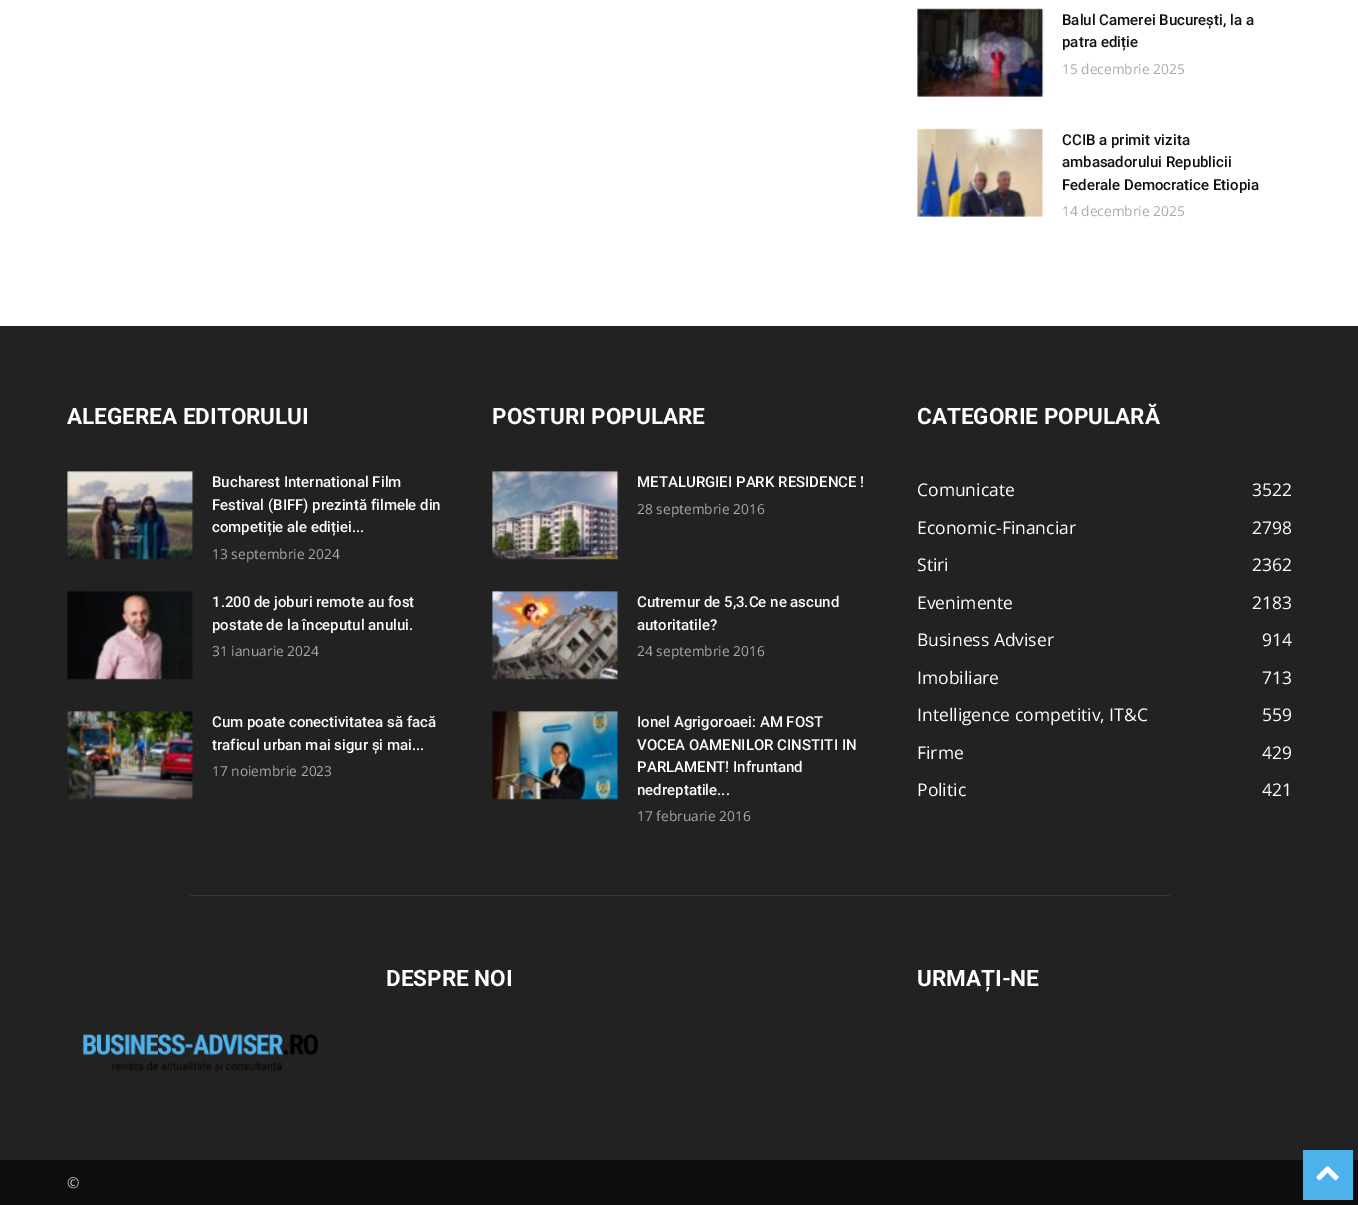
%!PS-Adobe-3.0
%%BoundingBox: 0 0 1358 1205
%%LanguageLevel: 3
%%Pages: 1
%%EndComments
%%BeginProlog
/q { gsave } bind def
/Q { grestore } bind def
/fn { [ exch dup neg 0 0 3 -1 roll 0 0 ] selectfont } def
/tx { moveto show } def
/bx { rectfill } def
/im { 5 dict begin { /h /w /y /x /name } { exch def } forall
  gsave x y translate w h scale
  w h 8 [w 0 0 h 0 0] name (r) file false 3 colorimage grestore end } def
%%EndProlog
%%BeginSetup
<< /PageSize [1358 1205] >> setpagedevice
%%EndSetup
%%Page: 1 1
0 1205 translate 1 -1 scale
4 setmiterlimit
1 setgray
0 0 1358 1205 bx
(image0.raw) 917 8 127 89 im
/Roboto-Medium 15 fn
0.067 setgray
(Balul Camerei București, la a) 1062 25 tx
(patra ediție) 1062 47 tx
/OpenSans-Regular 13.75 fn
0.667 setgray
(15 decembrie 2025) 1062 74 tx
(image1.raw) 917 128 127 89 im
/Roboto-Medium 15 fn
0.067 setgray
(CCIB a primit vizita) 1062 145 tx
(ambasadorului Republicii) 1062 167 tx
(Federale Democratice Etiopia) 1062 190 tx
/OpenSans-Regular 13.75 fn
0.667 setgray
(14 decembrie 2025) 1062 216 tx
0.133 setgray
0 326 1358 834 bx
/Roboto-Bold 22.5 fn
1 setgray
(ALEGEREA EDITORULUI) 67 424 tx
(image2.raw) 67 471 127 89 im
/Roboto-Medium 15 fn
(Bucharest International Film) 212 487 tx
(Festival \(BIFF\) prezintă filmele din) 212 510 tx
(competiție ale ediției...) 212 532 tx
/OpenSans-Regular 13.75 fn
0.667 setgray
(13 septembrie 2024) 212 559 tx
(image3.raw) 67 591 126 89 im
/Roboto-Medium 15 fn
1 setgray
(1.200 de joburi remote au fost) 212 607 tx
(postate de la începutul anului.) 212 630 tx
/OpenSans-Regular 13.75 fn
0.667 setgray
(31 ianuarie 2024) 212 656 tx
(image4.raw) 67 711 127 89 im
/Roboto-Medium 15 fn
1 setgray
(Cum poate conectivitatea să facă) 212 727 tx
(traficul urban mai sigur și mai...) 212 750 tx
/OpenSans-Regular 13.75 fn
0.667 setgray
(17 noiembrie 2023) 212 776 tx
/Roboto-Bold 22.5 fn
1 setgray
(POSTURI POPULARE) 492 424 tx
(image5.raw) 492 471 127 89 im
/Roboto-Medium 15 fn
(METALURGIEI PARK RESIDENCE !) 637 487 tx
/OpenSans-Regular 13.75 fn
0.667 setgray
(28 septembrie 2016) 637 514 tx
(image6.raw) 492 591 127 89 im
/Roboto-Medium 15 fn
1 setgray
(Cutremur de 5,3.Ce ne ascund) 637 607 tx
(autoritatile?) 637 630 tx
/OpenSans-Regular 13.75 fn
0.667 setgray
(24 septembrie 2016) 637 656 tx
(image7.raw) 492 711 127 89 im
/Roboto-Medium 15 fn
1 setgray
(Ionel Agrigoroaei: AM FOST) 637 727 tx
(VOCEA OAMENILOR CINSTITI IN) 637 750 tx
(PARLAMENT! Infruntand) 637 772 tx
(nedreptatile...) 637 795 tx
/OpenSans-Regular 13.75 fn
0.667 setgray
(17 februarie 2016) 637 821 tx
q
918 395 375 414 rectclip
/Roboto-Bold 22.5 fn
1 setgray
(CATEGORIE POPULARĂ) 917 424 tx
Q
/OpenSans-Regular 17.5 fn
1 setgray
(Comunicate) 917 496 tx
(3522) 1252 496 tx
(Economic-Financiar) 917 534 tx
(2798) 1252 534 tx
(Stiri) 917 571 tx
(2362) 1252 571 tx
(Evenimente) 917 609 tx
(2183) 1252 609 tx
(Business Adviser) 917 646 tx
(914) 1262 646 tx
(Imobiliare) 917 684 tx
(713) 1262 684 tx
(Intelligence competitiv, IT&C) 917 721 tx
(559) 1262 721 tx
(Firme) 917 759 tx
(429) 1262 759 tx
(Politic) 917 796 tx
(421) 1262 796 tx
0.22 setgray
190 895 980 1 bx
/Roboto-Bold 22.5 fn
1 setgray
(DESPRE NOI) 386 986 tx
(URMAȚI-NE) 917 986 tx
(image8.raw) 83 1034 236 39 im
0.051 setgray
0 1160 1358 45 bx
/OpenSans-Regular 15 fn
0.8 setgray
(©) 67 1188 tx
0.302 0.698 0.925 setrgbcolor
1303 1150 50 50 bx
(image9.raw) 1316 1166 23 15 im
showpage
%%EOF
